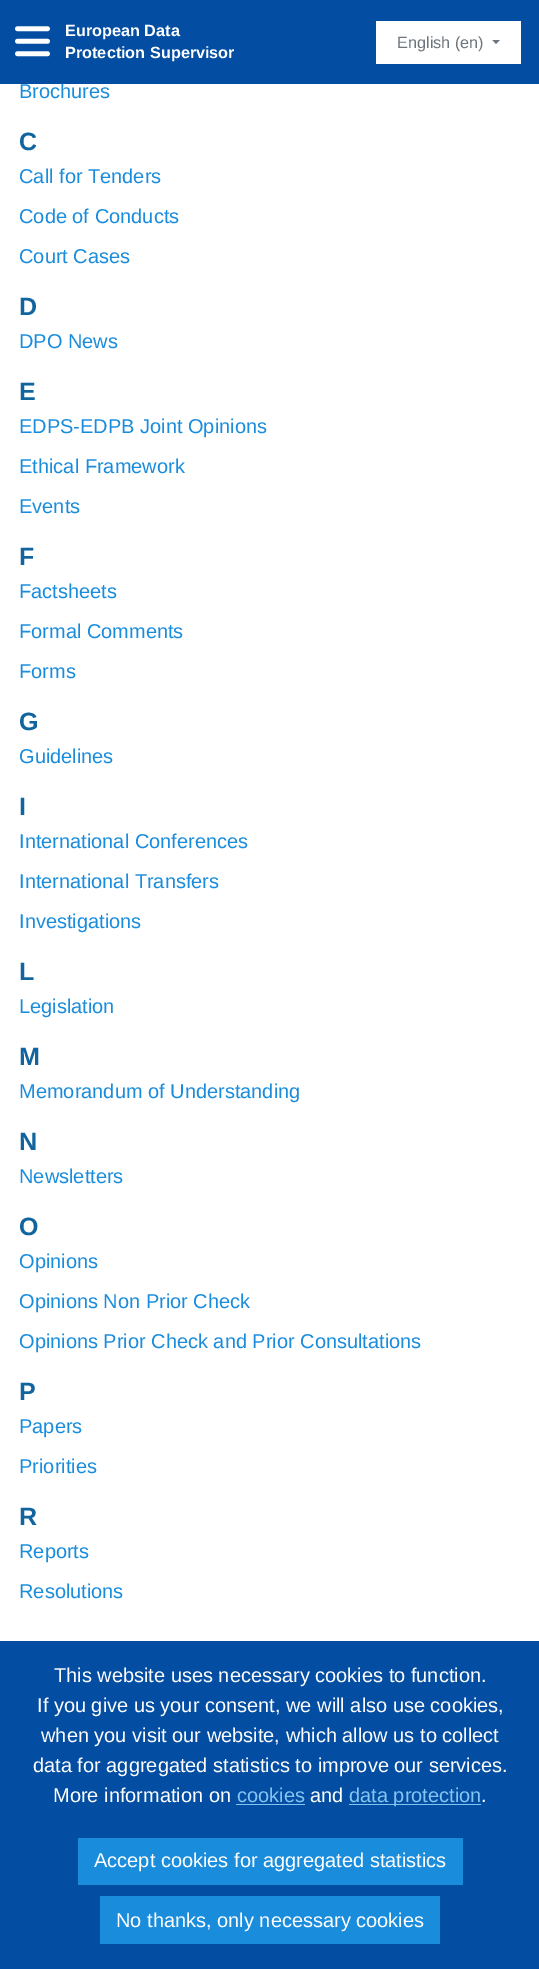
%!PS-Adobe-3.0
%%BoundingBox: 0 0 539 1969
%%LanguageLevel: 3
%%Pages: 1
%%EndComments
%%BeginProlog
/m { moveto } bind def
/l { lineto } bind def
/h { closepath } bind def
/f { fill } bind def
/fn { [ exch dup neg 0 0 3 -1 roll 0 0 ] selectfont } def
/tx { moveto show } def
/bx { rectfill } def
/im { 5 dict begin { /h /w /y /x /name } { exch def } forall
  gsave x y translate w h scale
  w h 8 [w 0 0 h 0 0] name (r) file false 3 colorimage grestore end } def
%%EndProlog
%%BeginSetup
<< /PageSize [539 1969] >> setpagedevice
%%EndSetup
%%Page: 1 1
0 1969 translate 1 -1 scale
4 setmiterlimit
1 setgray
0 0 539 1969 bx
/LiberationSans-Regular 20 fn
0.098 0.549 0.863 setrgbcolor
(Brochures) 19 98 tx
0.012 0.306 0.635 setrgbcolor
0 0 539 84 bx
(image0.raw) 15 26 35 31 im
/LiberationSans-Bold 16.25 fn
1 setgray
(European Data) 65 36 tx
(Protection Supervisor) 65 58 tx
376 21 145 43 bx
/LiberationSans-Regular 16.25 fn
0.424 0.459 0.49 setrgbcolor
(English \(en\)) 397 48 tx
492.5 40 m 500 40 l 496 44 l h f
/LiberationSans-Bold 25 fn
0.067 0.392 0.62 setrgbcolor
(C) 19 150 tx
/LiberationSans-Regular 20 fn
0.098 0.549 0.863 setrgbcolor
(Call for Tenders) 19 183 tx
(Code of Conducts) 19 223 tx
(Court Cases) 19 263 tx
/LiberationSans-Bold 25 fn
0.067 0.392 0.62 setrgbcolor
(D) 19 315 tx
/LiberationSans-Regular 20 fn
0.098 0.549 0.863 setrgbcolor
(DPO News) 19 348 tx
/LiberationSans-Bold 25 fn
0.067 0.392 0.62 setrgbcolor
(E) 19 400 tx
/LiberationSans-Regular 20 fn
0.098 0.549 0.863 setrgbcolor
(EDPS-EDPB Joint Opinions) 19 433 tx
(Ethical Framework) 19 473 tx
(Events) 19 513 tx
/LiberationSans-Bold 25 fn
0.067 0.392 0.62 setrgbcolor
(F) 19 565 tx
/LiberationSans-Regular 20 fn
0.098 0.549 0.863 setrgbcolor
(Factsheets) 19 598 tx
(Formal Comments) 19 638 tx
(Forms) 19 678 tx
/LiberationSans-Bold 25 fn
0.067 0.392 0.62 setrgbcolor
(G) 19 730 tx
/LiberationSans-Regular 20 fn
0.098 0.549 0.863 setrgbcolor
(Guidelines) 19 763 tx
/LiberationSans-Bold 25 fn
0.067 0.392 0.62 setrgbcolor
(I) 19 815 tx
/LiberationSans-Regular 20 fn
0.098 0.549 0.863 setrgbcolor
(International Conferences) 19 848 tx
(International Transfers) 19 888 tx
(Investigations) 19 928 tx
/LiberationSans-Bold 25 fn
0.067 0.392 0.62 setrgbcolor
(L) 19 980 tx
/LiberationSans-Regular 20 fn
0.098 0.549 0.863 setrgbcolor
(Legislation) 19 1013 tx
/LiberationSans-Bold 25 fn
0.067 0.392 0.62 setrgbcolor
(M) 19 1065 tx
/LiberationSans-Regular 20 fn
0.098 0.549 0.863 setrgbcolor
(Memorandum of Understanding) 19 1098 tx
/LiberationSans-Bold 25 fn
0.067 0.392 0.62 setrgbcolor
(N) 19 1150 tx
/LiberationSans-Regular 20 fn
0.098 0.549 0.863 setrgbcolor
(Newsletters) 19 1183 tx
/LiberationSans-Bold 25 fn
0.067 0.392 0.62 setrgbcolor
(O) 19 1235 tx
/LiberationSans-Regular 20 fn
0.098 0.549 0.863 setrgbcolor
(Opinions) 19 1268 tx
(Opinions Non Prior Check) 19 1308 tx
(Opinions Prior Check and Prior Consultations) 19 1348 tx
/LiberationSans-Bold 25 fn
0.067 0.392 0.62 setrgbcolor
(P) 19 1400 tx
/LiberationSans-Regular 20 fn
0.098 0.549 0.863 setrgbcolor
(Papers) 19 1433 tx
(Priorities) 19 1473 tx
/LiberationSans-Bold 25 fn
0.067 0.392 0.62 setrgbcolor
(R) 19 1525 tx
/LiberationSans-Regular 20 fn
0.098 0.549 0.863 setrgbcolor
(Reports) 19 1558 tx
(Resolutions) 19 1598 tx
0.012 0.306 0.635 setrgbcolor
0 1641 539 328 bx
1 setgray
(This website uses necessary cookies to function.) 54 1682 tx
(If you give us your consent, we will also use cookies,) 37 1712 tx
(when you visit our website, which allow us to collect) 41 1742 tx
(data for aggregated statistics to improve our services.) 33 1772 tx
(More information on) 53 1802 tx
0.518 0.769 0.945 setrgbcolor
(cookies) 237 1802 tx
236 1804 69 1 bx
1 setgray
(and) 310 1802 tx
0.518 0.769 0.945 setrgbcolor
349 1804 132 1 bx
(data protection) 349 1802 tx
1 setgray
(.) 481 1802 tx
0.098 0.549 0.863 setrgbcolor
78 1838 385 47 bx
1 setgray
(Accept cookies for aggregated statistics) 94 1867 tx
0.098 0.549 0.863 setrgbcolor
100 1896 340 48 bx
1 setgray
(No thanks, only necessary cookies) 116 1927 tx
showpage
%%EOF
